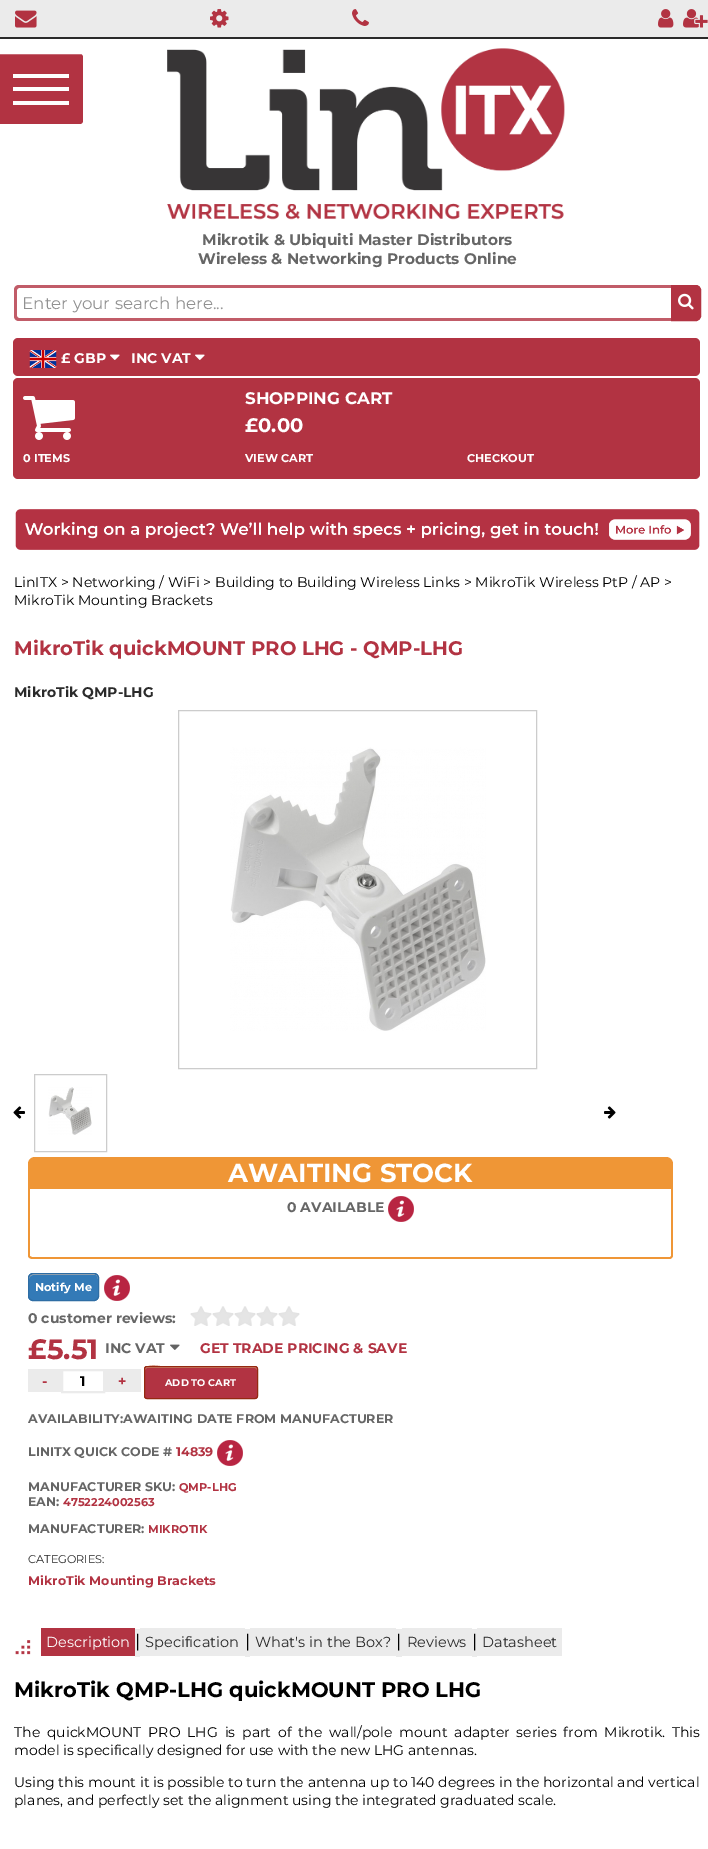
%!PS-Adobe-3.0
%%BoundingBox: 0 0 708 1849
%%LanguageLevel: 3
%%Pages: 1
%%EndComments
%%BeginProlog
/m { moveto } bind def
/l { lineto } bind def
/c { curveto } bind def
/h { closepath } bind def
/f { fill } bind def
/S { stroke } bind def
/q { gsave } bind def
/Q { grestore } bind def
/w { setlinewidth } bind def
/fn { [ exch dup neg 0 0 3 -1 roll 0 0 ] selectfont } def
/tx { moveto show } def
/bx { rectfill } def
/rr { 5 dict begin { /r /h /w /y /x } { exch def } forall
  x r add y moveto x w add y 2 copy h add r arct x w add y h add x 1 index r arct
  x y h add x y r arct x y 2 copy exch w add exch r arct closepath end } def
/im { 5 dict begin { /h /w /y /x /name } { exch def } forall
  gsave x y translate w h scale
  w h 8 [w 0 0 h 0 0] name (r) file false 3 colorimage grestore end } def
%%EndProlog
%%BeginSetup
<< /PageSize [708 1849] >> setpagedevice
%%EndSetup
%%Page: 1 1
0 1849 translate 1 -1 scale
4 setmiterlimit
1 setgray
0 0 708 1849 bx
0.922 setgray
0 0 708 37 bx
0.165 setgray
0 37 708 2 bx
(image0.raw) 15 10 22 18 im
(image1.raw) 210 9 19 19 im
(image2.raw) 352 9 17 17 im
(image3.raw) 658 9 16 19 im
(image4.raw) 683 9 25 19 im
0.698 0.2 0.259 setrgbcolor
-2 53 m 81 53 l 82.5 53 84 54.5 84 56 c 84 122 l 84 123.5 82.5 125 81 125 c -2 125 l h q f Q
1 setgray
2 w
S
0.996 setgray
13 87 56 4 bx
13 74 56 4 bx
13 101 56 4 bx
(image5.raw) 167 48 398 172 im
/Montserrat-Bold 15.3 fn
0.4 setgray
(Mikrotik & Ubiquiti Master Distributors) 202 245 tx
(Wireless & Networking Products Online) 198 264 tx
0.757 0.361 0.408 setrgbcolor
19 285 m 671 285 l 671 321 l 19 321 l 16 321 14 319 14 316 c 14 290 l 14 287 16 285 19 285 c h 19 288 m 671 288 l 671 318 l 19 318 l 18 318 17 317 17 316 c 17 290 l 17 289 18 288 19 288 c h eofill
/Montserrat-Regular 16.75 fn
0.569 setgray
(Enter your search here...) 22 309 tx
0.698 0.2 0.259 setrgbcolor
671.5 285.5 m 696 285.5 l 698.5 285.5 700.5 287.5 700.5 290 c 700.5 316 l 700.5 318.5 698.5 320.5 696 320.5 c 671.5 320.5 l h q f Q
1 w
S
(image6.raw) 678 293 16 17 im
13 338 687 38 5 rr f
(image7.raw) 29 350 28 18 im
/Montserrat-Bold 14 fn
1 setgray
(£ GBP) 61 363 tx
(image8.raw) 110 354 10 6 im
(INC VAT) 131 363 tx
(image8.raw) 195 354 10 6 im
0.698 0.2 0.259 setrgbcolor
13 378 687 101 5 rr f
(image9.raw) 23 396 52 44 im
/Montserrat-Bold 16.75 fn
1 setgray
(SHOPPING CART) 245 404 tx
/Montserrat-Bold 19.6 fn
(£0.00) 245 432 tx
/Montserrat-Bold 11.25 fn
(0 ITEMS) 23 462 tx
(VIEW CART) 245 462 tx
(CHECKOUT) 467 462 tx
(image10.raw) 15 509 685 41 im
/Montserrat-Regular 14 fn
0 setgray
(LinITX > Networking / WiFi > Building to Building Wireless Links > MikroTik Wireless PtP / AP >) 14 587 tx
(MikroTik Mounting Brackets) 14 605 tx
/Montserrat-Bold 19.6 fn
0.698 0.2 0.259 setrgbcolor
(MikroTik quickMOUNT PRO LHG - QMP-LHG) 14 655 tx
/Montserrat-Bold 14 fn
0.165 setgray
(MikroTik QMP-LHG) 14 697 tx
0.8 setgray
178.5 710.5 358 358 rectstroke
(image11.raw) 230 747 256 284 im
(image12.raw) 13 1106 12 13 im
34.5 1074.5 72 77 rectstroke
(image13.raw) 48 1087 44 48 im
(image14.raw) 604 1106 12 13 im
0.937 0.588 0.212 setrgbcolor
35 1157 m 666 1157 l 670 1157 673 1160 673 1164 c 673 1189 l 28 1189 l 28 1164 l 28 1160 31 1157 35 1157 c h f
/Montserrat-Bold 26 fn
1 setgray
(AWAITING STOCK) 228 1182 tx
0.937 0.588 0.212 setrgbcolor
28 1189 m 673 1189 l 673 1256 l 673 1257 671 1259 670 1259 c 32 1259 l 30 1259 28 1257 28 1256 c h 30 1189 m 671 1189 l 671 1256 l 671 1256 670 1257 670 1257 c 32 1257 l 31 1257 30 1256 30 1256 c h eofill
/Montserrat-Bold 14 fn
0.4 setgray
(0 AVAILABLE) 287 1212 tx
(image15.raw) 388 1196 26 26 im
0.2 0.478 0.718 setrgbcolor
28 1273 71 28 5 rr f
0.698 setgray
33 1275 m 96 1275 l 97 1276 98 1277 98 1279 c 98 1272 88 1274 84 1274 c 43 1274 l 39 1274 29 1272 29 1279 c 29 1277 31 1275 33 1275 c h 29 1297 m 29 1294 l h eofill
0.18 0.427 0.643 setrgbcolor
28.5 1273.5 70 27 4.5 rr S
/Montserrat-Bold 11.25 fn
1 setgray
(Notify Me) 35 1291 tx
(image15.raw) 104 1275 26 26 im
/Montserrat-Bold 14 fn
0.4 setgray
(0 customer reviews:) 28 1323 tx
(image16.raw) 190 1306 110 20 im
/Montserrat-Bold 28 fn
0.698 0.2 0.259 setrgbcolor
(£5.51) 28 1359 tx
/Montserrat-Bold 14 fn
0.4 setgray
(INC VAT) 105 1353 tx
(image17.raw) 170 1344 10 6 im
0.698 0.2 0.259 setrgbcolor
(GET TRADE PRICING & SAVE) 200 1353 tx
0.922 setgray
28 1369 33 23 bx
0.698 0.2 0.259 setrgbcolor
(-) 42 1386 tx
0.922 setgray
2 w
62 1370 42 22 rectstroke
0 setgray
(1) 80 1386 tx
0.922 setgray
105 1369 36 23 bx
0.698 0.2 0.259 setrgbcolor
(+) 118 1386 tx
144 1366 114 33 3 rr f
0.812 0.525 0.424 setrgbcolor
147 1368 m 255 1368 l 256 1368 257 1369 257 1370 c 257 1369 257 1367 255 1367 c 165 1367 l 165 1367 145 1362 145 1370 c 145 1369 146 1368 147 1368 c h f
0.58 0.161 0.067 setrgbcolor
1 w
144.5 1366.5 113 32 2.5 rr S
/Montserrat-Bold 9.75 fn
1 setgray
(ADD TO CART) 165 1386 tx
/Montserrat-Bold 12.6 fn
0.4 setgray
(AVAILABILITY:AWAITING DATE FROM MANUFACTURER) 28 1423 tx
(LINITX QUICK CODE #) 28 1456 tx
0.698 0.2 0.259 setrgbcolor
(14839) 176 1456 tx
(image15.raw) 217 1440 26 26 im
0.4 setgray
(MANUFACTURER SKU:) 28 1491 tx
/Montserrat-Bold 11.25 fn
0.698 0.2 0.259 setrgbcolor
(QMP-LHG) 179 1491 tx
/Montserrat-Bold 12.6 fn
0.4 setgray
(EAN:) 28 1506 tx
/Montserrat-Bold 11.25 fn
0.698 0.2 0.259 setrgbcolor
(4752224002563) 63 1506 tx
/Montserrat-Bold 12.6 fn
0.4 setgray
(MANUFACTURER:) 28 1533 tx
/Montserrat-Bold 11.25 fn
0.698 0.2 0.259 setrgbcolor
(MIKROTIK) 148 1533 tx
/Montserrat-Regular 11.25 fn
0.165 setgray
(CATEGORIES:) 28 1563 tx
/Montserrat-Bold 12.6 fn
0.698 0.2 0.259 setrgbcolor
(MikroTik Mounting Brackets) 28 1585 tx
(image18.raw) 15 1640 16 15 im
41 1628 94 28 bx
/Montserrat-Regular 14.5 fn
1 setgray
(Description) 46 1647 tx
0.922 setgray
135 1629 5 28 bx
/Montserrat-Regular 18 fn
0 setgray
(|) 135 1647 tx
0.922 setgray
140 1628 105 28 bx
/Montserrat-Regular 14.5 fn
0.165 setgray
(Specification) 145 1647 tx
0.922 setgray
245 1629 5 28 bx
/Montserrat-Regular 18 fn
0 setgray
(|) 245 1647 tx
0.922 setgray
250 1628 146 28 bx
/Montserrat-Regular 14.5 fn
0.165 setgray
(What's in the Box?) 255 1647 tx
0.922 setgray
396 1629 6 28 bx
/Montserrat-Regular 18 fn
0 setgray
(|) 396 1647 tx
0.922 setgray
402 1628 70 28 bx
/Montserrat-Regular 14.5 fn
0.165 setgray
(Reviews) 407 1647 tx
0.922 setgray
472 1629 5 28 bx
/Montserrat-Regular 18 fn
0 setgray
(|) 472 1647 tx
0.922 setgray
477 1628 85 28 bx
/Montserrat-Regular 14.5 fn
0.165 setgray
(Datasheet) 482 1647 tx
/Montserrat-Bold 21 fn
0 setgray
(MikroTik QMP-LHG quickMOUNT PRO LHG) 14 1697 tx
/Montserrat-Regular 14 fn
14 1737 m 3.25 0 32 (The quickMOUNT PRO LHG is part of the wall/pole mount adapter series from Mikrotik. This) widthshow
(model is specifically designed for use with the new LHG antennas.) 14 1755 tx
(Using this mount it is possible to turn the antenna up to 140 degrees in the horizontal and vertical) 14 1787 tx
(planes, and perfectly set the alignment using the integrated graduated scale.) 14 1805 tx
showpage
%%EOF
